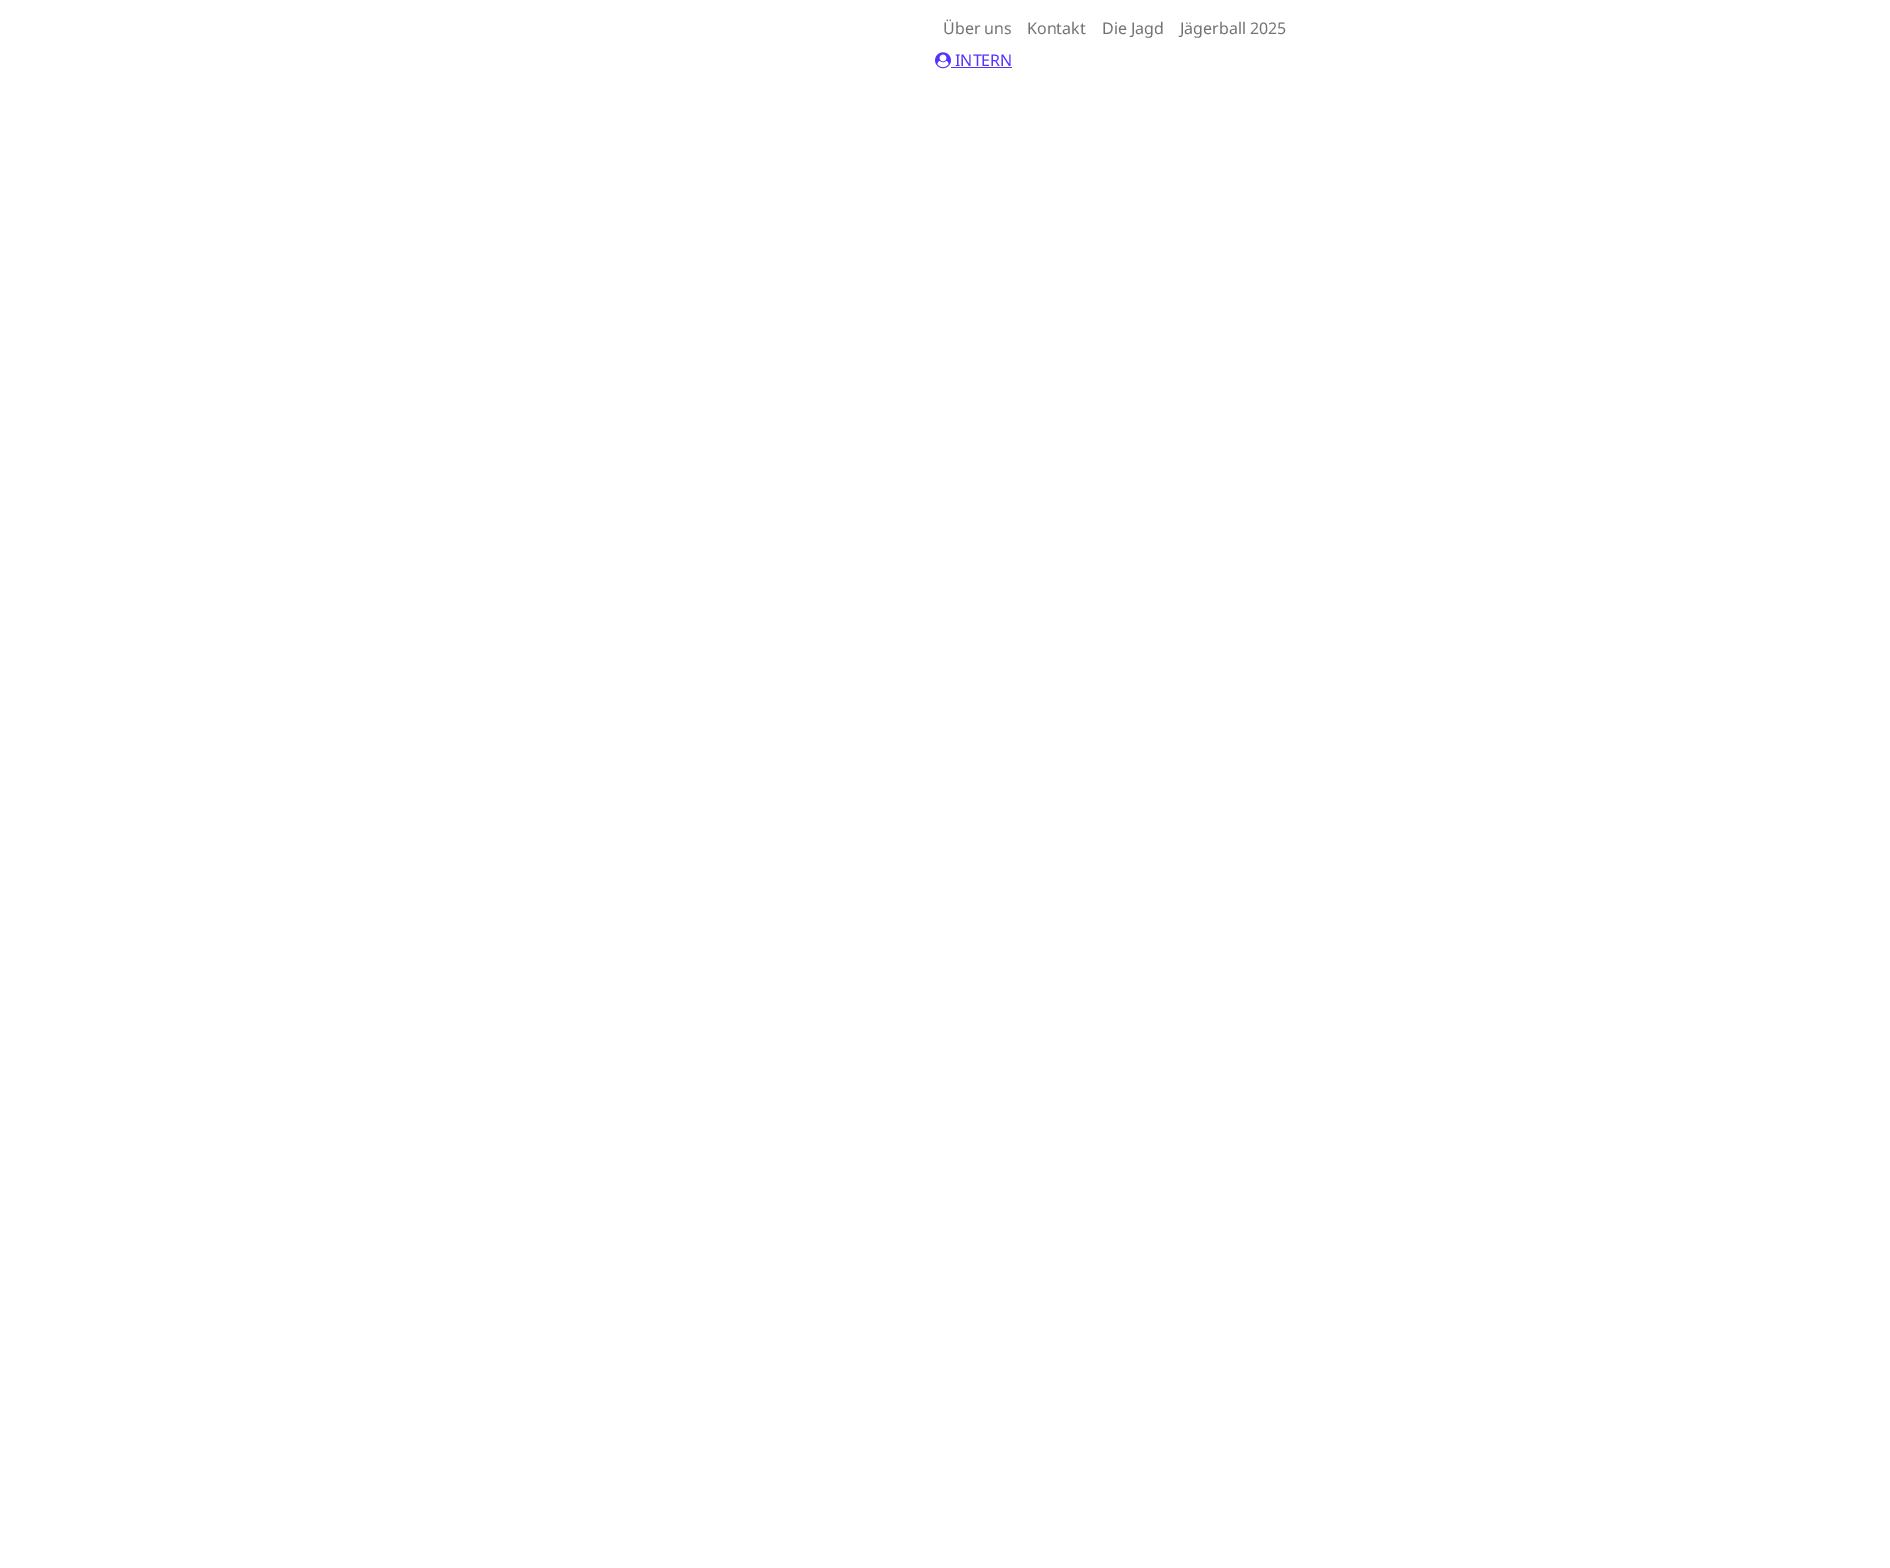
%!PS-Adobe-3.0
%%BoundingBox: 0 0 1890 1568
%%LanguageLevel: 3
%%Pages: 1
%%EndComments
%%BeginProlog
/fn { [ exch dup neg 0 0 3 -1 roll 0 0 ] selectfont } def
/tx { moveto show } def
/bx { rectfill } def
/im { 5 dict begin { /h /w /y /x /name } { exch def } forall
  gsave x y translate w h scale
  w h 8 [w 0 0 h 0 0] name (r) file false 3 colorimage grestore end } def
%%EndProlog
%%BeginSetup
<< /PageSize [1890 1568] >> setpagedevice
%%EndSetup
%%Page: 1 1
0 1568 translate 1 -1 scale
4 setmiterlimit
1 setgray
0 0 1890 1568 bx
/NotoSans-Regular 16 fn
0.451 setgray
(Über uns) 943 34 tx
(Kontakt) 1027 34 tx
(Die Jagd) 1102 34 tx
(Jägerball 2025) 1180 34 tx
(image0.raw) 935 52 16 17 im
0.333 0.2 1 setrgbcolor
(INTERN) 955 66 tx
951 67 61 1 bx
showpage
%%EOF
